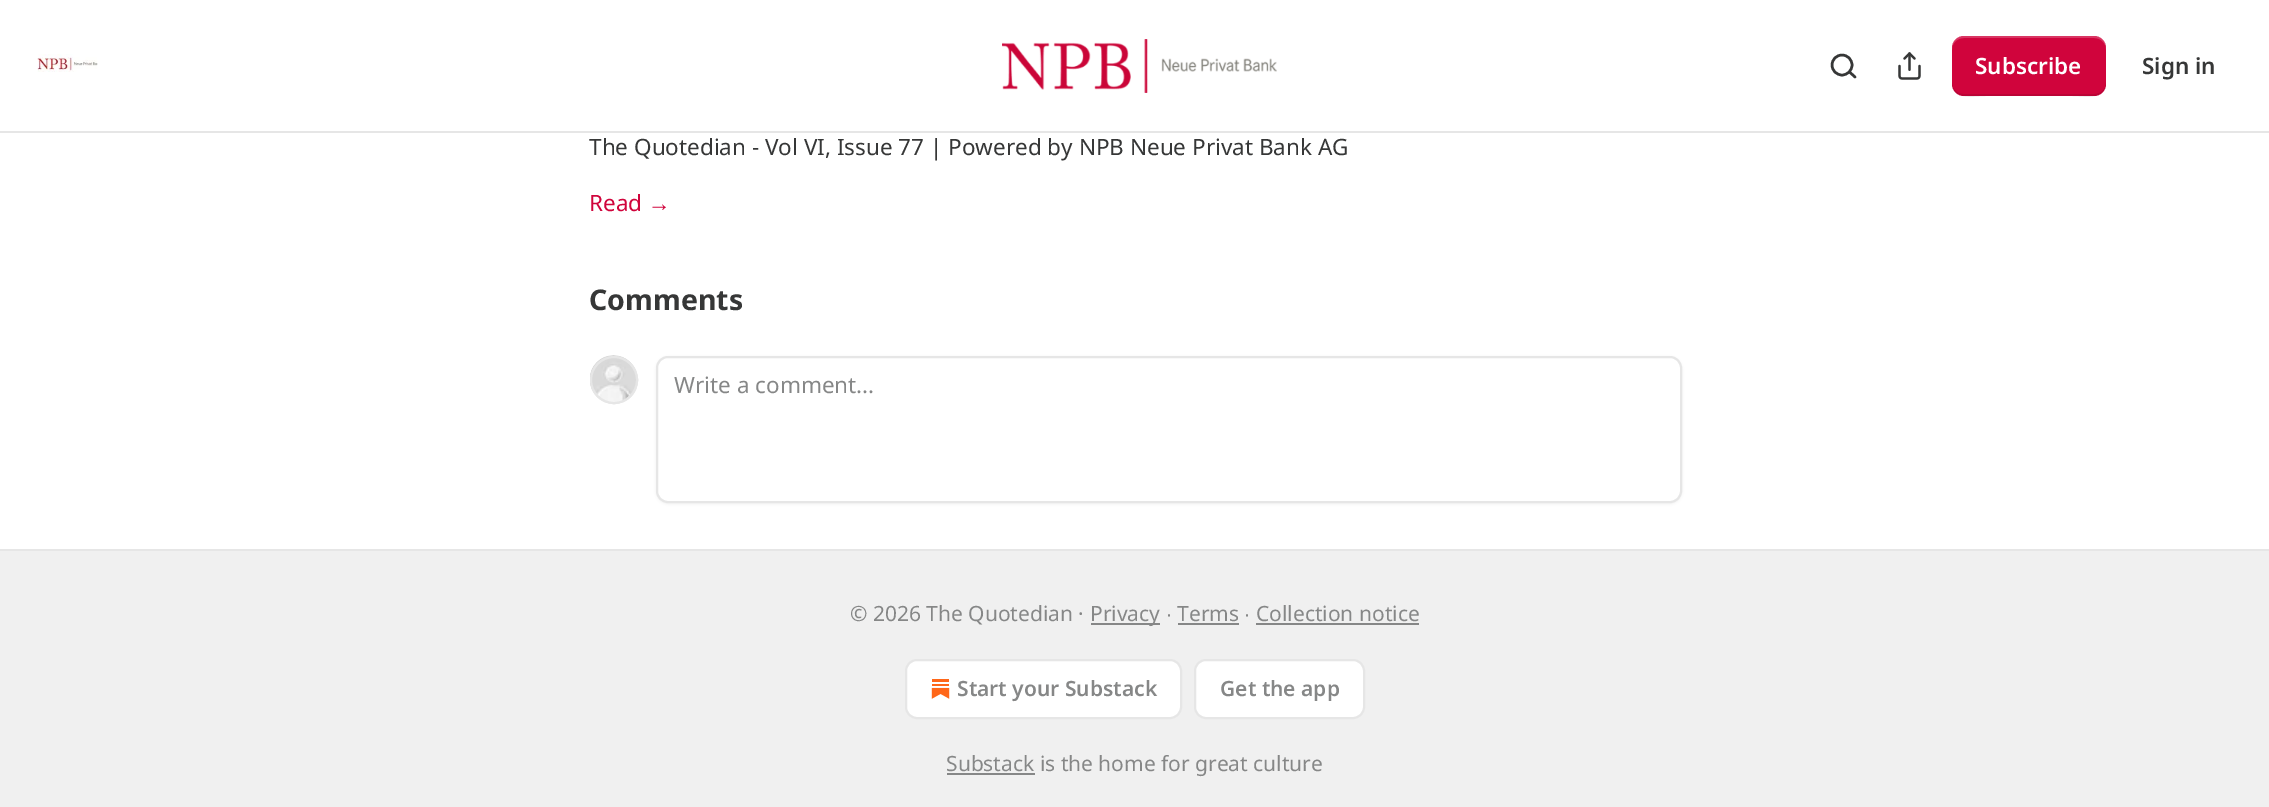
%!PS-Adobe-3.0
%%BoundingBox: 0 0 2269 807
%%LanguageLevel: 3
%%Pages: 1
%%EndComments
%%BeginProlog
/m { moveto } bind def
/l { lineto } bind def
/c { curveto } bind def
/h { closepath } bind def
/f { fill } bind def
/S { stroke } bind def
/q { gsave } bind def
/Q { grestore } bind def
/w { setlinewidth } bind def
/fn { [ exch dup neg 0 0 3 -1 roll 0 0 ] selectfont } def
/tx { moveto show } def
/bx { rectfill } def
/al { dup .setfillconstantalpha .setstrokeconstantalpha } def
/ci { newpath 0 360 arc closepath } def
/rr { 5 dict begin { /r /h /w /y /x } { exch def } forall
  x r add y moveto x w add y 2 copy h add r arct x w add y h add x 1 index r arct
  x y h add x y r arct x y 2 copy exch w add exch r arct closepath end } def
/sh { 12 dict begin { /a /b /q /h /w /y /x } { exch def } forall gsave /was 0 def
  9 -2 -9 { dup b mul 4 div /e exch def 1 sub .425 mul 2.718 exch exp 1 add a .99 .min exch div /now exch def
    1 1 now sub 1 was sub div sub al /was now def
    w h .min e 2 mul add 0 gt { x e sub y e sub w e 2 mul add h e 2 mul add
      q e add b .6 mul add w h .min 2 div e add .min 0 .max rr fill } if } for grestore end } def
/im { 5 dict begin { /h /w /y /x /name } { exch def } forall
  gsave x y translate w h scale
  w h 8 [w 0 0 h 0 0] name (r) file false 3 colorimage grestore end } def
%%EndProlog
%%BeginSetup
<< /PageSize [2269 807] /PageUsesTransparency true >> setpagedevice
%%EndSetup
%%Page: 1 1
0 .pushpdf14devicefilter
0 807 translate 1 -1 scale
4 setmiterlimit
1 setgray
0 0 2269 807 bx
0.902 setgray
0 131 2269 2 bx
(image0.raw) 37 54 61 18 im
(image1.raw) 1002 39 275 54 im
0.212 0.216 0.216 setrgbcolor
2.5 w
1842 65 10 ci S
1 setlinecap
1 setlinejoin
1855 77 m 1849.5 72 l S
(image2.raw) 1898 52 23 28 im
0.816 0.016 0.235 setrgbcolor
1952 36 154 60 12 rr f
0.1 al
0 setgray
1952 82 m 1952 101 1972 96 1986 96 c 2072 96 l 2086 96 2106 101 2106 82 c 2106 89 2101 94 2094 94 c 1964 94 l 1957 94 1952 89 1952 82 c h f
0.2 al
1 setgray
1964 38 m 2094 38 l 2101 38 2106 43 2106 50 c 2106 31 2086 36 2072 36 c 1986 36 l 1972 36 1952 31 1952 50 c 1952 43 1957 38 1964 38 c h f
/NotoSans-SemiBold 22.5 fn
1 al
(Subscribe) 1975 74 tx
0.212 0.216 0.216 setrgbcolor
(Sign in) 2142 74 tx
/NotoSans-Regular 22.5 fn
(The Quotedian - Vol VI, Issue 77 | Powered by NPB Neue Privat Bank AG) 589 155 tx
0.816 0.016 0.235 setrgbcolor
(Read) 589 211 tx
/LiberationSans-Regular 22.5 fn
(→) 648 211 tx
/NotoSans-Bold 28.5 fn
0.212 0.216 0.216 setrgbcolor
(Comments) 589 310 tx
0.902 setgray
2 w
0 setlinecap
0 setlinejoin
614 380 23 ci S
(image3.raw) 590 355 47 47 im
614 380 23 ci S
0 setgray
656 357 1026 147 12 1.5 0.05 sh
1 setgray
657 357 1024 145 11 rr q f Q
0.902 setgray
S
/NotoSans-Regular 22.5 fn
0.525 0.529 0.529 setrgbcolor
(Write a comment...) 674 393 tx
0.941 setgray
0 551 2269 256 bx
0.902 setgray
0 549 2269 2 bx
/NotoSans-Regular 21 fn
0.525 0.529 0.529 setrgbcolor
(© 2026 The Quotedian ·) 850 621 tx
1091 623 69 2 bx
(Privacy) 1090 621 tx
/LiberationSans-Regular 21 fn
(∙) 1166 621 tx
/NotoSans-Regular 21 fn
(Terms) 1177 621 tx
1178 623 61 2 bx
/LiberationSans-Regular 21 fn
(∙) 1244 621 tx
/NotoSans-Regular 21 fn
(Collection notice) 1256 621 tx
1256 623 163 2 bx
1 setgray
906 660 275 58 11 rr q f Q
0.902 setgray
S
(image4.raw) 931 679 19 20 im
/NotoSans-SemiBold 21 fn
0.525 0.529 0.529 setrgbcolor
(Start your Substack) 957 696 tx
1 setgray
1195 660 169 58 11 rr q f Q
0.902 setgray
S
0.525 0.529 0.529 setrgbcolor
(Get the app) 1220 696 tx
947 773 88 2 bx
/NotoSans-Regular 21 fn
(Substack is the home for great culture) 946 771 tx
.poppdf14devicefilter showpage
%%EOF
